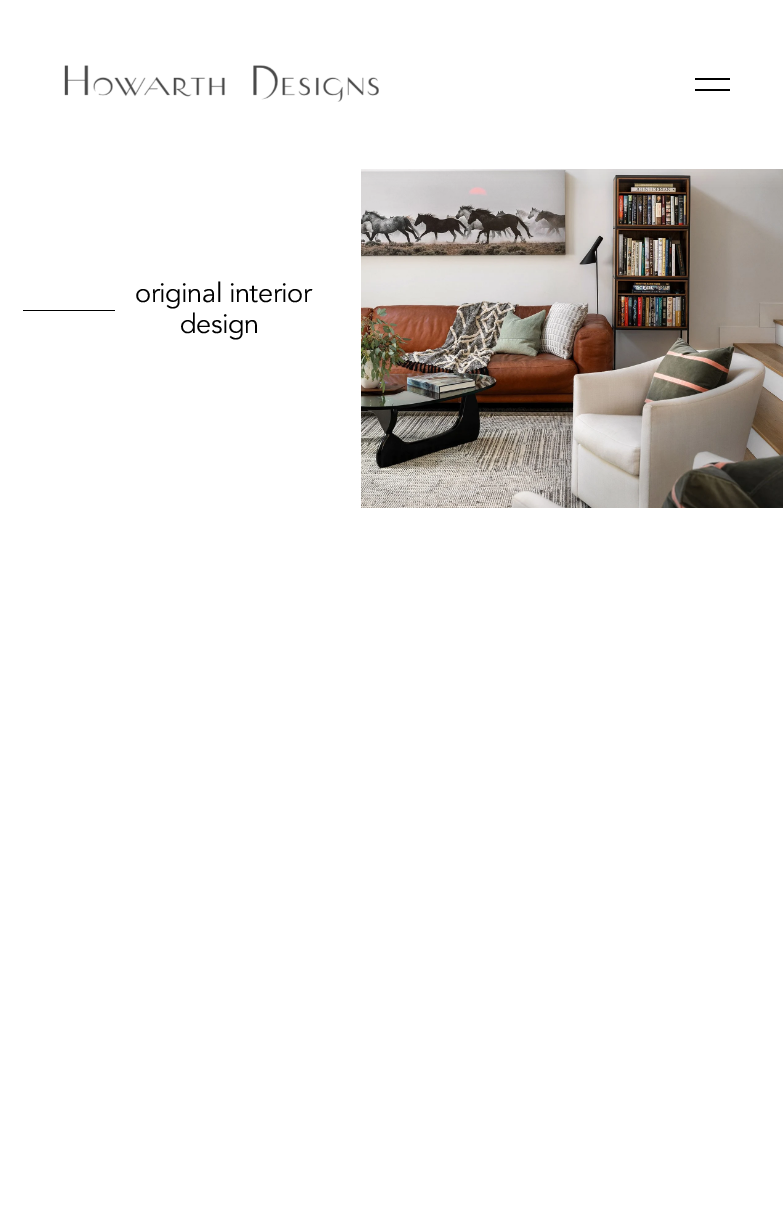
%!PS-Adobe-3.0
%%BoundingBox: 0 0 783 1213
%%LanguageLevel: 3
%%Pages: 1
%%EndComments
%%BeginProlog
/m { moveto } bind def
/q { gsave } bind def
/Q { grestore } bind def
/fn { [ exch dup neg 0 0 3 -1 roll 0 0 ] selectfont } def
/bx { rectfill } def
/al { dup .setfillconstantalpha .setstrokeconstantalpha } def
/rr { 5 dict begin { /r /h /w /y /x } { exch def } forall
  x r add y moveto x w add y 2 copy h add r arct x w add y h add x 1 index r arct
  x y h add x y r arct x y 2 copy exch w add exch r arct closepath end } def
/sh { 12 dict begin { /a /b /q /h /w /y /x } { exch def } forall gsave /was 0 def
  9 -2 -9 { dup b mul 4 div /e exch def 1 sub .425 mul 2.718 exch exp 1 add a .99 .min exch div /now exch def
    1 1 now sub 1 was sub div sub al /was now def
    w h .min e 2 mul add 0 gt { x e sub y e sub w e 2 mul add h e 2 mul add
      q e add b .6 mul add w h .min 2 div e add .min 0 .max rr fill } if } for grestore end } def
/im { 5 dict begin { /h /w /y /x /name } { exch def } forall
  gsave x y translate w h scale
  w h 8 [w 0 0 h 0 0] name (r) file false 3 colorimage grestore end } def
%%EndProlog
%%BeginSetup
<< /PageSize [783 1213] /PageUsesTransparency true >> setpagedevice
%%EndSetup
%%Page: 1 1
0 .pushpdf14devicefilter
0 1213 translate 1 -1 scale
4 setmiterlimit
1 setgray
0 0 783 1213 bx
(image1.raw) 361 169 422 339 im
q
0 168 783 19 rectclip
0 12 783 168 0 6 0.15 sh
Q
(image0.raw) 64 65 315 37 im
0 setgray
695 78 35 2 bx
695 89 35 2 bx
23 310 92 1 bx
/Avenir-Regular 27.25 fn
135 302 m -0.5 0 (original interior) ashow
180 333 m -0.5 0 (design) ashow
.poppdf14devicefilter showpage
%%EOF
